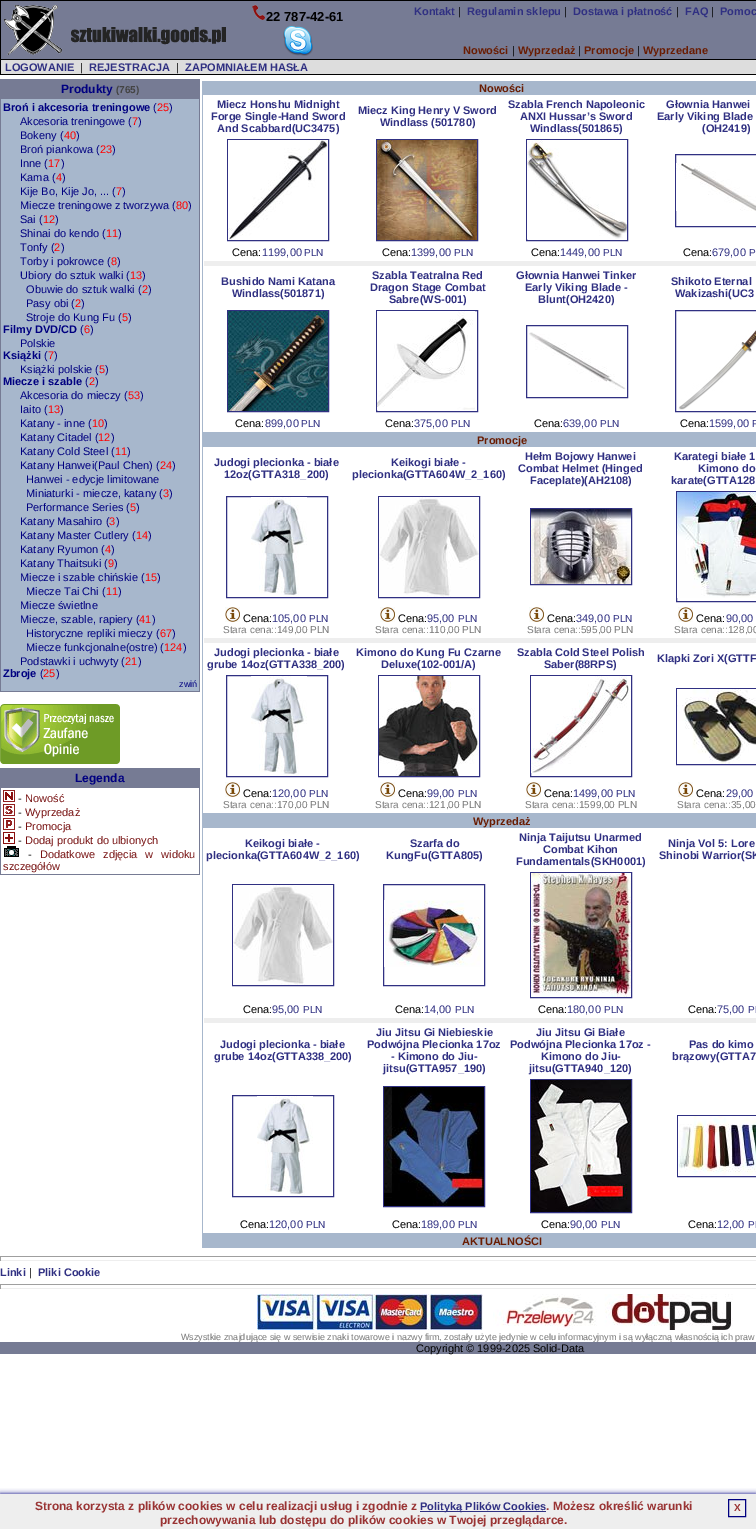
%!PS-Adobe-3.0
%%BoundingBox: 0 0 756 1529
%%LanguageLevel: 3
%%Pages: 1
%%EndComments
%%BeginProlog
/m { moveto } bind def
/fn { [ exch dup neg 0 0 3 -1 roll 0 0 ] selectfont } def
/tx { moveto show } def
/bx { rectfill } def
/al { dup .setfillconstantalpha .setstrokeconstantalpha } def
/rr { 5 dict begin { /r /h /w /y /x } { exch def } forall
  x r add y moveto x w add y 2 copy h add r arct x w add y h add x 1 index r arct
  x y h add x y r arct x y 2 copy exch w add exch r arct closepath end } def
/sh { 12 dict begin { /a /b /q /h /w /y /x } { exch def } forall gsave /was 0 def
  9 -2 -9 { dup b mul 4 div /e exch def 1 sub .425 mul 2.718 exch exp 1 add a .99 .min exch div /now exch def
    1 1 now sub 1 was sub div sub al /was now def
    w h .min e 2 mul add 0 gt { x e sub y e sub w e 2 mul add h e 2 mul add
      q e add b .6 mul add w h .min 2 div e add .min 0 .max rr fill } if } for grestore end } def
/im { 5 dict begin { /h /w /y /x /name } { exch def } forall
  gsave x y translate w h scale
  w h 8 [w 0 0 h 0 0] name (r) file false 3 colorimage grestore end } def
%%EndProlog
%%BeginSetup
<< /PageSize [756 1529] /PageUsesTransparency true >> setpagedevice
%%EndSetup
%%Page: 1 1
0 .pushpdf14devicefilter
0 1529 translate 1 -1 scale
4 setmiterlimit
1 setgray
0 0 756 1529 bx
0 setgray
0 0 756 75 bx
0.463 0.482 0.58 setrgbcolor
1 1 755 58 bx
(image0.raw) 4 5 222 50 im
(image1.raw) 252 4 13 16 im
/LiberationSans-Bold 13 fn
0 setgray
(22 787-42-61) 266 21 tx
(image2.raw) 283 26 30 30 im
/LiberationSans-Bold 11 fn
0.188 0.188 0.51 setrgbcolor
(Kontakt) 414 15 tx
/LiberationSans-Regular 11 fn
0 setgray
(|) 458 15 tx
/LiberationSans-Bold 11 fn
0.188 0.188 0.51 setrgbcolor
(Regulamin sklepu) 467 15 tx
/LiberationSans-Regular 11 fn
0 setgray
(|) 564 15 tx
/LiberationSans-Bold 11 fn
0.188 0.188 0.51 setrgbcolor
(Dostawa i płatność) 573 15 tx
/LiberationSans-Regular 11 fn
0 setgray
(|) 676 15 tx
/LiberationSans-Bold 11 fn
0.188 0.188 0.51 setrgbcolor
(FAQ) 685 15 tx
/LiberationSans-Regular 11 fn
0 setgray
(|) 711 15 tx
/LiberationSans-Bold 11 fn
0.188 0.188 0.51 setrgbcolor
(Pomoc) 720 15 tx
0.412 0.11 0.008 setrgbcolor
(Nowości) 463 54 tx
/LiberationSans-Regular 11 fn
0 setgray
(|) 512 54 tx
/LiberationSans-Bold 11 fn
0.412 0.11 0.008 setrgbcolor
(Wyprzedaż) 518 54 tx
/LiberationSans-Regular 11 fn
0 setgray
(|) 578 54 tx
/LiberationSans-Bold 11 fn
0.412 0.11 0.008 setrgbcolor
(Promocje) 584 54 tx
/LiberationSans-Regular 11 fn
0 setgray
(|) 637 54 tx
/LiberationSans-Bold 11 fn
0.412 0.11 0.008 setrgbcolor
(Wyprzedane) 643 54 tx
0.867 setgray
1 60 755 14 bx
0.188 0.188 0.51 setrgbcolor
(LOGOWANIE) 5 71 tx
/LiberationSans-Regular 11 fn
0 setgray
(|) 80 71 tx
/LiberationSans-Bold 11 fn
0.188 0.188 0.51 setrgbcolor
(REJESTRACJA) 89 71 tx
/LiberationSans-Regular 11 fn
0 setgray
(|) 176 71 tx
/LiberationSans-Bold 11 fn
0.188 0.188 0.51 setrgbcolor
(ZAPOMNIAŁEM HASŁA) 185 71 tx
0.463 0.482 0.58 setrgbcolor
0 79 200 613 bx
/LiberationSans-Bold 12 fn
0 0 0.502 setrgbcolor
(Produkty) 61 93 tx
/LiberationSans-Bold 10 fn
0.267 setgray
(\(765\)) 116 93 tx
0.655 0.718 0.8 setrgbcolor
1 99 198 592 bx
/LiberationSans-Bold 11 fn
0 0 0.502 setrgbcolor
(Broń i akcesoria treningowe) 3 111 tx
/LiberationSans-Regular 11 fn
(\() 153 111 tx
1 0 0 setrgbcolor
(25) 157 111 tx
0 0 0.502 setrgbcolor
(\)) 169 111 tx
(Akcesoria treningowe \() 20 125 tx
1 0 0 setrgbcolor
(7) 132 125 tx
0 0 0.502 setrgbcolor
(\)) 138 125 tx
(Bokeny \() 20 139 tx
1 0 0 setrgbcolor
(40) 64 139 tx
0 0 0.502 setrgbcolor
(\)) 76 139 tx
(Broń piankowa \() 20 153 tx
1 0 0 setrgbcolor
(23) 100 153 tx
0 0 0.502 setrgbcolor
(\)) 112 153 tx
(Inne \() 20 167 tx
1 0 0 setrgbcolor
(17) 48 167 tx
0 0 0.502 setrgbcolor
(\)) 61 167 tx
(Kama \() 20 181 tx
1 0 0 setrgbcolor
(4) 56 181 tx
0 0 0.502 setrgbcolor
(\)) 62 181 tx
(Kije Bo, Kije Jo, ... \() 20 195 tx
1 0 0 setrgbcolor
(7) 116 195 tx
0 0 0.502 setrgbcolor
(\)) 122 195 tx
(Miecze treningowe z tworzywa \() 20 209 tx
1 0 0 setrgbcolor
(80) 176 209 tx
0 0 0.502 setrgbcolor
(\)) 188 209 tx
(Sai \() 20 223 tx
1 0 0 setrgbcolor
(12) 43 223 tx
0 0 0.502 setrgbcolor
(\)) 55 223 tx
(Shinai do kendo \() 20 237 tx
1 0 0 setrgbcolor
(11) 106 237 tx
0 0 0.502 setrgbcolor
(\)) 118 237 tx
(Tonfy \() 20 251 tx
1 0 0 setrgbcolor
(2) 54 251 tx
0 0 0.502 setrgbcolor
(\)) 61 251 tx
(Torby i pokrowce \() 20 265 tx
1 0 0 setrgbcolor
(8) 111 265 tx
0 0 0.502 setrgbcolor
(\)) 117 265 tx
(Ubiory do sztuk walki \() 20 279 tx
1 0 0 setrgbcolor
(13) 130 279 tx
0 0 0.502 setrgbcolor
(\)) 142 279 tx
(Obuwie do sztuk walki \() 26 293 tx
1 0 0 setrgbcolor
(2) 142 293 tx
0 0 0.502 setrgbcolor
(\)) 148 293 tx
(Pasy obi \() 26 307 tx
1 0 0 setrgbcolor
(2) 75 307 tx
0 0 0.502 setrgbcolor
(\)) 81 307 tx
(Stroje do Kung Fu \() 26 321 tx
1 0 0 setrgbcolor
(5) 122 321 tx
0 0 0.502 setrgbcolor
(\)) 128 321 tx
/LiberationSans-Bold 11 fn
(Filmy DVD/CD) 3 333 tx
/LiberationSans-Regular 11 fn
(\() 80 333 tx
1 0 0 setrgbcolor
(6) 84 333 tx
0 0 0.502 setrgbcolor
(\)) 90 333 tx
(Polskie) 20 347 tx
/LiberationSans-Bold 11 fn
(Książki) 3 359 tx
/LiberationSans-Regular 11 fn
(\() 44 359 tx
1 0 0 setrgbcolor
(7) 48 359 tx
0 0 0.502 setrgbcolor
(\)) 54 359 tx
(Książki polskie \() 20 373 tx
1 0 0 setrgbcolor
(5) 99 373 tx
0 0 0.502 setrgbcolor
(\)) 105 373 tx
/LiberationSans-Bold 11 fn
(Miecze i szable) 3 385 tx
/LiberationSans-Regular 11 fn
(\() 85 385 tx
1 0 0 setrgbcolor
(2) 89 385 tx
0 0 0.502 setrgbcolor
(\)) 95 385 tx
(Akcesoria do mieczy \() 20 399 tx
1 0 0 setrgbcolor
(53) 128 399 tx
0 0 0.502 setrgbcolor
(\)) 140 399 tx
(Iaito \() 20 413 tx
1 0 0 setrgbcolor
(13) 48 413 tx
0 0 0.502 setrgbcolor
(\)) 60 413 tx
(Katany - inne \() 20 427 tx
1 0 0 setrgbcolor
(10) 92 427 tx
0 0 0.502 setrgbcolor
(\)) 104 427 tx
(Katany Citadel \() 20 441 tx
1 0 0 setrgbcolor
(12) 98 441 tx
0 0 0.502 setrgbcolor
(\)) 111 441 tx
(Katany Cold Steel \() 20 455 tx
1 0 0 setrgbcolor
(11) 115 455 tx
0 0 0.502 setrgbcolor
(\)) 127 455 tx
(Katany Hanwei\(Paul Chen\) \() 20 469 tx
1 0 0 setrgbcolor
(24) 160 469 tx
0 0 0.502 setrgbcolor
(\)) 172 469 tx
(Hanwei - edycje limitowane) 26 483 tx
(Miniaturki - miecze, katany \() 26 497 tx
1 0 0 setrgbcolor
(3) 163 497 tx
0 0 0.502 setrgbcolor
(\)) 169 497 tx
(Performance Series \() 26 511 tx
1 0 0 setrgbcolor
(5) 130 511 tx
0 0 0.502 setrgbcolor
(\)) 136 511 tx
(Katany Masahiro \() 20 525 tx
1 0 0 setrgbcolor
(3) 109 525 tx
0 0 0.502 setrgbcolor
(\)) 116 525 tx
(Katany Master Cutlery \() 20 539 tx
1 0 0 setrgbcolor
(14) 136 539 tx
0 0 0.502 setrgbcolor
(\)) 148 539 tx
(Katany Ryumon \() 20 553 tx
1 0 0 setrgbcolor
(4) 105 553 tx
0 0 0.502 setrgbcolor
(\)) 111 553 tx
(Katany Thaitsuki \() 20 567 tx
1 0 0 setrgbcolor
(9) 108 567 tx
0 0 0.502 setrgbcolor
(\)) 114 567 tx
(Miecze i szable chińskie \() 20 581 tx
1 0 0 setrgbcolor
(15) 145 581 tx
0 0 0.502 setrgbcolor
(\)) 157 581 tx
(Miecze Tai Chi \() 26 595 tx
1 0 0 setrgbcolor
(11) 106 595 tx
0 0 0.502 setrgbcolor
(\)) 118 595 tx
(Miecze świetlne) 20 609 tx
(Miecze, szable, rapiery \() 20 623 tx
1 0 0 setrgbcolor
(41) 139 623 tx
0 0 0.502 setrgbcolor
(\)) 152 623 tx
(Historyczne repliki mieczy \() 26 637 tx
1 0 0 setrgbcolor
(67) 160 637 tx
0 0 0.502 setrgbcolor
(\)) 172 637 tx
(Miecze funkcjonalne\(ostre\) \() 26 651 tx
1 0 0 setrgbcolor
(124) 164 651 tx
0 0 0.502 setrgbcolor
(\)) 183 651 tx
(Podstawki i uchwyty \() 20 665 tx
1 0 0 setrgbcolor
(21) 125 665 tx
0 0 0.502 setrgbcolor
(\)) 138 665 tx
/LiberationSans-Bold 11 fn
(Zbroje) 3 677 tx
/LiberationSans-Regular 11 fn
(\() 40 677 tx
1 0 0 setrgbcolor
(25) 43 677 tx
0 0 0.502 setrgbcolor
(\)) 56 677 tx
/LiberationSans-Regular 9 fn
(zwiń) 179 687 tx
(image3.raw) 0 704 120 60 im
0.463 0.482 0.58 setrgbcolor
0 768 200 107 bx
/LiberationSans-Bold 12 fn
0 0 0.502 setrgbcolor
(Legenda) 75 782 tx
1 setgray
1 788 198 86 bx
(image4.raw) 3 790 12 12 im
/LiberationSans-Regular 11 fn
0 setgray
(-) 18 802 tx
0.467 0.067 0.067 setrgbcolor
(Nowość) 25 802 tx
(image5.raw) 3 804 12 12 im
0 setgray
(-) 18 816 tx
0.467 0.067 0.067 setrgbcolor
(Wyprzedaż) 25 816 tx
(image6.raw) 3 818 12 12 im
0 setgray
(-) 18 830 tx
0.467 0.067 0.067 setrgbcolor
(Promocja) 25 830 tx
(image7.raw) 3 832 12 12 im
0 setgray
(-) 18 844 tx
0.467 0.067 0.067 setrgbcolor
(Dodaj produkt do ulbionych) 25 844 tx
(image8.raw) 4 846 15 11 im
0 setgray
(-) 28 858 tx
0.467 0.067 0.067 setrgbcolor
40 858 m 5 0 32 (Dodatkowe zdjęcia w widoku) widthshow
(szczegółów) 3 870 tx
0.655 0.718 0.8 setrgbcolor
202 81 554 1167 bx
/LiberationSans-Bold 11 fn
0.412 0.11 0.008 setrgbcolor
(Nowości) 479 92 tx
1 setgray
203 95 553 337 bx
0.188 0.188 0.51 setrgbcolor
(Miecz Honshu Midnight) 217 108 tx
(Forge Single-Hand Sword) 211 120 tx
(And Scabbard\(UC3475\)) 217 132 tx
(Miecz King Henry V Sword) 358 114 tx
(Windlass \(501780\)) 380 126 tx
(Szabla French Napoleonic) 508 108 tx
(ANXI Hussar’s Sword) 520 120 tx
(Windlass\(501865\)) 530 132 tx
(Głownia Hanwei) 666 108 tx
(Early Viking Blade) 657 120 tx
(\(OH2419\)) 702 132 tx
227.5 139.5 101 101 rectstroke
(image9.raw) 228 140 100 100 im
376.5 139.5 101 101 rectstroke
(image10.raw) 377 140 100 100 im
526.5 139.5 101 101 rectstroke
(image11.raw) 527 140 100 99 im
675.5 154.5 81 72 rectstroke
(image12.raw) 676 163 80 48 im
/LiberationSans-Regular 11 fn
0 setgray
(Cena:) 232 256 tx
0.188 0.188 0.51 setrgbcolor
(1199,00) 262 256 tx
/LiberationSans-Regular 10 fn
(PLN) 304 256 tx
/LiberationSans-Regular 11 fn
0 setgray
(Cena:) 382 256 tx
0.188 0.188 0.51 setrgbcolor
(1399,00) 411 256 tx
/LiberationSans-Regular 10 fn
(PLN) 454 256 tx
/LiberationSans-Regular 11 fn
0 setgray
(Cena:) 531 256 tx
0.188 0.188 0.51 setrgbcolor
(1449,00) 560 256 tx
/LiberationSans-Regular 10 fn
(PLN) 603 256 tx
/LiberationSans-Regular 11 fn
0 setgray
(Cena:) 683 256 tx
0.188 0.188 0.51 setrgbcolor
(679,00) 712 256 tx
/LiberationSans-Regular 10 fn
(P) 749 256 tx
0.933 setgray
204 261 552 5 bx
/LiberationSans-Bold 11 fn
0.188 0.188 0.51 setrgbcolor
(Bushido Nami Katana) 221 285 tx
(Windlass\(501871\)) 232 297 tx
(Szabla Teatralna Red) 372 279 tx
(Dragon Stage Combat) 370 291 tx
(Sabre\(WS-001\)) 389 303 tx
(Głownia Hanwei Tinker) 516 279 tx
(Early Viking Blade -) 525 291 tx
(Blunt\(OH2420\)) 538 303 tx
(Shikoto Eternal) 671 285 tx
(Wakizashi\(UC3) 675 297 tx
227.5 310.5 101 101 rectstroke
(image13.raw) 228 311 100 100 im
376.5 310.5 101 101 rectstroke
(image14.raw) 377 311 98 99 im
526.5 325.5 101 72 rectstroke
(image15.raw) 529 332 97 58 im
675.5 310.5 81 101 rectstroke
(image16.raw) 678 330 78 80 im
/LiberationSans-Regular 11 fn
0 setgray
(Cena:) 235 427 tx
0.188 0.188 0.51 setrgbcolor
(899,00) 265 427 tx
/LiberationSans-Regular 10 fn
(PLN) 301 427 tx
/LiberationSans-Regular 11 fn
0 setgray
(Cena:) 385 427 tx
0.188 0.188 0.51 setrgbcolor
(375,00) 414 427 tx
/LiberationSans-Regular 10 fn
(PLN) 451 427 tx
/LiberationSans-Regular 11 fn
0 setgray
(Cena:) 534 427 tx
0.188 0.188 0.51 setrgbcolor
(639,00) 563 427 tx
/LiberationSans-Regular 10 fn
(PLN) 600 427 tx
/LiberationSans-Regular 11 fn
0 setgray
(Cena:) 680 427 tx
0.188 0.188 0.51 setrgbcolor
(1599,00) 709 427 tx
/LiberationSans-Regular 10 fn
(P) 752 427 tx
/LiberationSans-Bold 11 fn
0.412 0.11 0.008 setrgbcolor
(Promocje) 477 444 tx
1 setgray
203 447 553 366 bx
0.188 0.188 0.51 setrgbcolor
(Judogi plecionka - białe) 214 466 tx
(12oz\(GTTA318_200\)) 224 478 tx
(Keikogi białe -) 391 466 tx
(plecionka\(GTTA604W_2_160\)) 352 478 tx
(Hełm Bojowy Hanwei) 525 460 tx
(Combat Helmet \(Hinged) 518 472 tx
(Faceplate\)\(AH2108\)) 530 484 tx
(Karategi białe 1) 674 460 tx
(Kimono do) 698 472 tx
(karate\(GTTA128) 671 484 tx
226.5 496.5 101 101 rectstroke
(image17.raw) 251 497 56 100 im
378.5 496.5 101 101 rectstroke
(image18.raw) 379 497 100 100 im
530.5 508.5 101 76 rectstroke
(image19.raw) 531 509 100 75 im
676.5 491.5 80 110 rectstroke
(image20.raw) 677 492 79 106 im
(image21.raw) 225 607 15 15 im
/LiberationSans-Regular 11 fn
0 setgray
(Cena:) 243 622 tx
0.188 0.188 0.51 setrgbcolor
(105,00) 272 622 tx
/LiberationSans-Regular 10 fn
(PLN) 309 622 tx
0.467 setgray
(Stara cena::149,00 PLN) 223 633 tx
(image21.raw) 380 607 15 15 im
/LiberationSans-Regular 11 fn
0 setgray
(Cena:) 398 622 tx
0.188 0.188 0.51 setrgbcolor
(95,00) 427 622 tx
/LiberationSans-Regular 10 fn
(PLN) 458 622 tx
0.467 setgray
(Stara cena::110,00 PLN) 375 633 tx
(image21.raw) 529 607 15 15 im
/LiberationSans-Regular 11 fn
0 setgray
(Cena:) 547 622 tx
0.188 0.188 0.51 setrgbcolor
(349,00) 576 622 tx
/LiberationSans-Regular 10 fn
(PLN) 613 622 tx
0.467 setgray
(Stara cena::595,00 PLN) 527 633 tx
(image21.raw) 678 607 15 15 im
/LiberationSans-Regular 11 fn
0 setgray
(Cena:) 696 622 tx
0.188 0.188 0.51 setrgbcolor
(90,00) 726 622 tx
/LiberationSans-Regular 10 fn
0.467 setgray
(Stara cena::128,00) 674 633 tx
0.933 setgray
204 638 552 5 bx
/LiberationSans-Bold 11 fn
0.188 0.188 0.51 setrgbcolor
(Judogi plecionka - białe) 214 656 tx
(grube 14oz\(GTTA338_200\)) 207 668 tx
(Kimono do Kung Fu Czarne) 356 656 tx
(Deluxe\(102-001/A\)) 381 668 tx
(Szabla Cold Steel Polish) 517 656 tx
(Saber\(88RPS\)) 544 668 tx
(Klapki Zori X\(GTTF) 657 662 tx
226.5 675.5 101 101 rectstroke
(image17.raw) 251 676 56 100 im
378.5 675.5 101 101 rectstroke
(image22.raw) 379 676 100 100 im
530.5 675.5 101 101 rectstroke
(image23.raw) 531 676 100 97 im
676.5 688.5 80 76 rectstroke
(image24.raw) 677 689 79 75 im
(image21.raw) 225 782 15 15 im
/LiberationSans-Regular 11 fn
0 setgray
(Cena:) 243 797 tx
0.188 0.188 0.51 setrgbcolor
(120,00) 272 797 tx
/LiberationSans-Regular 10 fn
(PLN) 309 797 tx
0.467 setgray
(Stara cena::170,00 PLN) 223 808 tx
(image21.raw) 380 782 15 15 im
/LiberationSans-Regular 11 fn
0 setgray
(Cena:) 398 797 tx
0.188 0.188 0.51 setrgbcolor
(99,00) 427 797 tx
/LiberationSans-Regular 10 fn
(PLN) 458 797 tx
0.467 setgray
(Stara cena::121,00 PLN) 375 808 tx
(image21.raw) 526 782 15 15 im
/LiberationSans-Regular 11 fn
0 setgray
(Cena:) 544 797 tx
0.188 0.188 0.51 setrgbcolor
(1499,00) 573 797 tx
/LiberationSans-Regular 10 fn
(PLN) 616 797 tx
0.467 setgray
(Stara cena::1599,00 PLN) 525 808 tx
(image21.raw) 678 782 15 15 im
/LiberationSans-Regular 11 fn
0 setgray
(Cena:) 696 797 tx
0.188 0.188 0.51 setrgbcolor
(29,00) 726 797 tx
/LiberationSans-Regular 10 fn
0.467 setgray
(Stara cena::35,00) 677 808 tx
/LiberationSans-Bold 11 fn
0.412 0.11 0.008 setrgbcolor
(Wyprzedaż) 473 825 tx
1 setgray
203 828 553 405 bx
0.188 0.188 0.51 setrgbcolor
(Keikogi białe -) 245 847 tx
(plecionka\(GTTA604W_2_160\)) 206 859 tx
(Szarfa do) 410 847 tx
(KungFu\(GTTA805\)) 386 859 tx
(Ninja Taijutsu Unarmed) 519 841 tx
(Combat Kihon) 543 853 tx
(Fundamentals\(SKH0001\)) 516 865 tx
(Ninja Vol 5: Lore) 668 847 tx
(Shinobi Warrior\(SK) 659 859 tx
232.5 884.5 101 101 rectstroke
(image18.raw) 233 885 100 100 im
383.5 884.5 101 101 rectstroke
(image25.raw) 384 900 97 67 im
530.5 872.5 101 125 rectstroke
(image26.raw) 531 873 100 124 im
/LiberationSans-Regular 11 fn
0 setgray
(Cena:) 243 1013 tx
0.188 0.188 0.51 setrgbcolor
(95,00) 272 1013 tx
/LiberationSans-Regular 10 fn
(PLN) 303 1013 tx
/LiberationSans-Regular 11 fn
0 setgray
(Cena:) 395 1013 tx
0.188 0.188 0.51 setrgbcolor
(14,00) 424 1013 tx
/LiberationSans-Regular 10 fn
(PLN) 455 1013 tx
/LiberationSans-Regular 11 fn
0 setgray
(Cena:) 538 1013 tx
0.188 0.188 0.51 setrgbcolor
(180,00) 567 1013 tx
/LiberationSans-Regular 10 fn
(PLN) 604 1013 tx
/LiberationSans-Regular 11 fn
0 setgray
(Cena:) 688 1013 tx
0.188 0.188 0.51 setrgbcolor
(75,00) 717 1013 tx
/LiberationSans-Regular 10 fn
(PL) 748 1013 tx
0.933 setgray
204 1018 552 5 bx
/LiberationSans-Bold 11 fn
0.188 0.188 0.51 setrgbcolor
(Judogi plecionka - białe) 220 1048 tx
(grube 14oz\(GTTA338_200\)) 214 1060 tx
(Jiu Jitsu Gi Niebieskie) 376 1036 tx
(Podwójna Plecionka 17oz) 367 1048 tx
(- Kimono do Jiu-) 391 1060 tx
(jitsu\(GTTA957_190\)) 383 1072 tx
(Jiu Jitsu Gi Białe) 536 1036 tx
(Podwójna Plecionka 17oz -) 510 1048 tx
(Kimono do Jiu-) 541 1060 tx
(jitsu\(GTTA940_120\)) 529 1072 tx
(Pas do kimo) 689 1048 tx
(brązowy\(GTTA7) 672 1060 tx
232.5 1095.5 101 101 rectstroke
(image17.raw) 257 1096 56 100 im
383.5 1086.5 101 120 rectstroke
(image27.raw) 384 1087 100 119 im
530.5 1079.5 101 133 rectstroke
(image28.raw) 531 1080 100 132 im
677.5 1115.5 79 61 rectstroke
(image29.raw) 678 1116 78 60 im
/LiberationSans-Regular 11 fn
0 setgray
(Cena:) 240 1228 tx
0.188 0.188 0.51 setrgbcolor
(120,00) 269 1228 tx
/LiberationSans-Regular 10 fn
(PLN) 306 1228 tx
/LiberationSans-Regular 11 fn
0 setgray
(Cena:) 392 1228 tx
0.188 0.188 0.51 setrgbcolor
(189,00) 421 1228 tx
/LiberationSans-Regular 10 fn
(PLN) 458 1228 tx
/LiberationSans-Regular 11 fn
0 setgray
(Cena:) 541 1228 tx
0.188 0.188 0.51 setrgbcolor
(90,00) 570 1228 tx
/LiberationSans-Regular 10 fn
(PLN) 601 1228 tx
/LiberationSans-Regular 11 fn
0 setgray
(Cena:) 688 1228 tx
0.188 0.188 0.51 setrgbcolor
(12,00) 717 1228 tx
/LiberationSans-Regular 10 fn
(PL) 748 1228 tx
/LiberationSans-Bold 11 fn
0.412 0.11 0.008 setrgbcolor
(AKTUALNOŚCI) 462 1245 tx
0.624 setgray
0 1256 756 1 bx
0.933 setgray
0 1260 756 1 bx
0.624 setgray
0 1256 1 5 bx
0.188 0.188 0.51 setrgbcolor
(Linki) 0 1276 tx
/LiberationSans-Regular 11 fn
0 setgray
(|) 29 1276 tx
/LiberationSans-Bold 11 fn
0.188 0.188 0.51 setrgbcolor
(Pliki Cookie) 38 1276 tx
0.624 setgray
0 1284 756 1 bx
0.933 setgray
0 1288 756 1 bx
0.624 setgray
0 1284 1 5 bx
(image30.raw) 257 1294 226 36 im
(image31.raw) 493 1294 240 36 im
/LiberationSans-Regular 9 fn
0.467 setgray
(Wszystkie znajdujące się w serwisie znaki towarowe i nazwy firm, zostały użyte jedynie w celu informacyjnym i są wyłączną własnością ich praw) 181 1340 tx
0.463 0.482 0.58 setrgbcolor
0 1342 756 12 bx
/LiberationSans-Regular 11 fn
0 setgray
(Copyright © 1999-2025 Solid-Data) 416 1352 tx
0 0 0.502 setrgbcolor
0 1494 756 35 0 2.5 1 sh
0.933 setgray
0 1494 756 35 bx
/LiberationSans-Bold 12 fn
0.6 0.2 0.2 setrgbcolor
(Strona korzysta z plików cookies w celu realizacji usług i zgodnie z) 35 1510 tx
0.188 0.188 0.51 setrgbcolor
420 1511 126 1 bx
/LiberationSans-Bold 11 fn
(Polityką Plików Cookies) 420 1510 tx
/LiberationSans-Bold 12 fn
0.6 0.2 0.2 setrgbcolor
(. Możesz określić warunki) 546 1510 tx
(przechowywania lub dostępu do plików cookies w Twojej przeglądarce.) 160 1524 tx
0 0 0.502 setrgbcolor
728.5 1499.5 17 17 rectstroke
/LiberationSans-Bold 10 fn
0.6 0.2 0.2 setrgbcolor
(X) 734 1511 tx
.poppdf14devicefilter showpage
%%EOF
